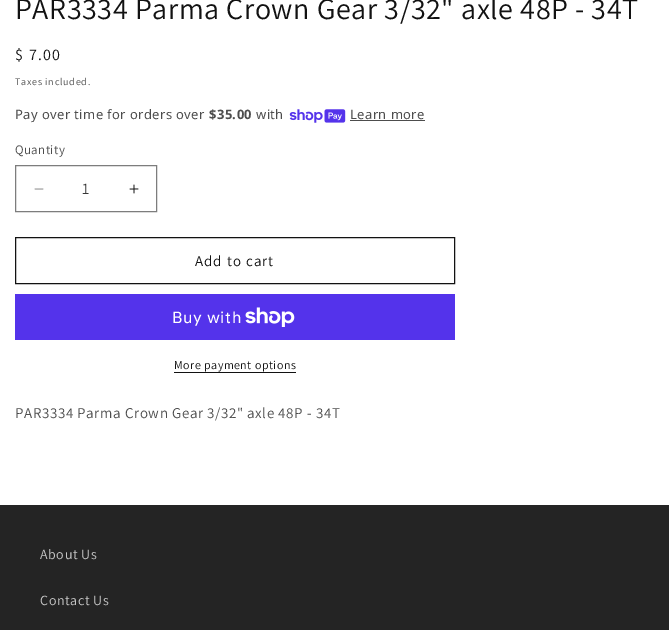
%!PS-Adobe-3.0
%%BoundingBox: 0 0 669 630
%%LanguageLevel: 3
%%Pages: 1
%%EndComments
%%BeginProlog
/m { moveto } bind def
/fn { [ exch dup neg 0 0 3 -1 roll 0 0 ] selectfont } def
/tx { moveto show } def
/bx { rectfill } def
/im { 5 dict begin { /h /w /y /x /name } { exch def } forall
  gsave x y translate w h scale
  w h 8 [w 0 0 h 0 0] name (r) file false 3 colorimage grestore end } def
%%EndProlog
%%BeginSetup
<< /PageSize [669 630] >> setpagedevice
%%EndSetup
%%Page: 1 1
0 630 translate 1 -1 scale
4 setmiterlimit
1 setgray
0 0 669 630 bx
/Assistant-Regular 30 fn
0.071 setgray
15 19 m 0.6 0 (PAR3334 Parma Crown Gear 3/32" axle 48P - 34T) ashow
/Assistant-Regular 16 fn
15 60 m 1.25 0 ($ 7.00) ashow
/Assistant-Regular 10 fn
0.302 setgray
15 85 m 0.75 0 (Taxes included.) ashow
/NotoSans-Regular 13 fn
15 119 m 0.4 0 (Pay over time for orders over) ashow
/NotoSans-Bold 13 fn
209 119 m 0.4 0 ($35.00) ashow
/NotoSans-Regular 13 fn
256 119 m 0.4 0 (with) ashow
(image0.raw) 289 109 57 14 im
350 119 m 0.4 0 (Learn more) ashow
350 120 75 1 bx
/Assistant-Regular 13 fn
15 154 m 0.4 0 (Quantity) ashow
(image1.raw) 34 188 10 2 im
(image2.raw) 129 184 10 10 im
0.49 setgray
15.5 165.5 141 46 rectstroke
/Assistant-Regular 16 fn
0.212 setgray
(1) 82 194 tx
0.071 setgray
15.5 237.5 439 46 rectstroke
/Assistant-Regular 15 fn
195 266 m 1 0 (Add to cart) ashow
0.329 0.2 0.922 setrgbcolor
15 294 440 46 bx
/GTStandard-Regular 16 fn
1 setgray
172 323 m 0.6 0 (Buy with) ashow
(image3.raw) 245 307 50 20 im
/Assistant-Regular 12 fn
0.071 setgray
174 369 m 0.5 0 (More payment options) ashow
174 372 122 1 bx
/Assistant-Regular 15 fn
0.302 setgray
15 418 m 0.6 0 (PAR3334 Parma Crown Gear 3/32" axle 48P - 34T) ashow
0.141 setgray
0 505 669 125 bx
/Assistant-Regular 14 fn
0.784 setgray
40 559 m 0.6 0 (About Us) ashow
40 605 m 0.6 0 (Contact Us) ashow
showpage
%%EOF
